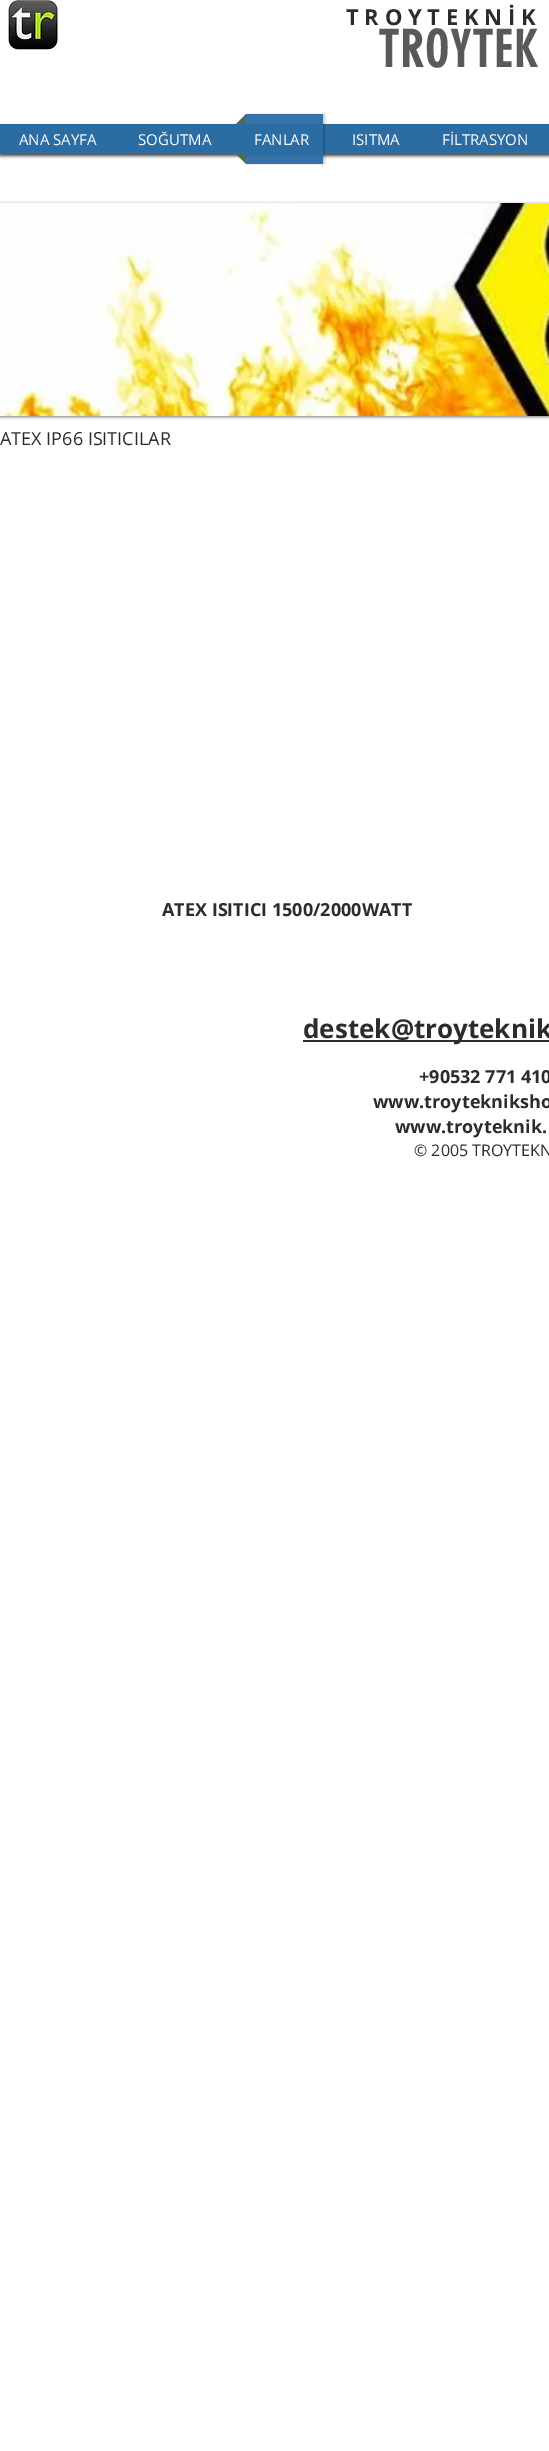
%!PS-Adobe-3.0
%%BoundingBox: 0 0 549 2451
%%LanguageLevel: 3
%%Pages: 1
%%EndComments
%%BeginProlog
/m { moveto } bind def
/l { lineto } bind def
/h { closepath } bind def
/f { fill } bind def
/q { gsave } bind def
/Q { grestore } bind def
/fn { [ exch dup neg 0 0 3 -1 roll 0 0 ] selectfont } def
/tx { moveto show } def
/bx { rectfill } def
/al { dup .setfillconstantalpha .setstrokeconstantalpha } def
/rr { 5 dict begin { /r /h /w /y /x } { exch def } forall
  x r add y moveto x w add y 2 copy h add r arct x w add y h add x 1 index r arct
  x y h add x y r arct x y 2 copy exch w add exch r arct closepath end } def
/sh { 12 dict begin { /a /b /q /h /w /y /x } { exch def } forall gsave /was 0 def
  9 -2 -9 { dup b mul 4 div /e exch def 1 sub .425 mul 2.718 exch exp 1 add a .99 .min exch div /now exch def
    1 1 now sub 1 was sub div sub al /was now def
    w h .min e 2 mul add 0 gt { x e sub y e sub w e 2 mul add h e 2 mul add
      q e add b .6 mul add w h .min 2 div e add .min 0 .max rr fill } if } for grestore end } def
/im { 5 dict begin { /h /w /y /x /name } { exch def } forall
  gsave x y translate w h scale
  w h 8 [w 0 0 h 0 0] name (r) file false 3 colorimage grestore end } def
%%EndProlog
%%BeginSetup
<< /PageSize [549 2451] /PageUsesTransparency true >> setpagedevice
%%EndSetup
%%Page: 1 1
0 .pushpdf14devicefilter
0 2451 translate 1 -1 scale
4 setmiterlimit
1 setgray
0 0 549 2451 bx
/OpenSans-Bold 22 fn
0.173 0.173 0.169 setrgbcolor
(T R O Y T E K N İ K) 346 25 tx
0 setgray
0 204 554 213 0 1.5 0.5 sh
(image0.raw) 0 203 549 213 im
/OpenSans-Regular 18 fn
0.173 0.173 0.169 setrgbcolor
(ATEX IP66 ISITICILAR) 0 445 tx
/OpenSans-Bold 18 fn
(ATEX ISITICI 1500/2000WATT) 162 916 tx
(image1.raw) 8 0 50 50 im
/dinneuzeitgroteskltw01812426-Bold 50 fn
0.349 setgray
378 67 m 1.75 0 (TROYTEK) ashow
0 setgray
0 126 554 30 0 1.5 0.7 sh
0.169 0.424 0.639 setrgbcolor
0 124 549 30 bx
/OpenSans-Regular 15 fn
1 setgray
(ANA SAYFA) 19 145 tx
(SOĞUTMA) 138 145 tx
q
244 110 m 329 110 l 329 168 l 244 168 l h 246 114 m 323 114 l 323 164 l 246 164 l h eoclip newpath
0 setgray
248 114 77 50 0 1 0.2 sh
Q
0.306 0.42 0.31 setrgbcolor
246 124 m 236 124 l 246 114 l h 236 154 m 246 154 l 246 164 l h f
0.95 al
0.169 0.424 0.639 setrgbcolor
246 114 77 50 bx
1 al
1 setgray
(FANLAR) 254 145 tx
(ISITMA) 352 145 tx
(FİLTRASYON) 442 145 tx
0.173 0.173 0.169 setrgbcolor
303 1040 246 2 bx
/OpenSans-Bold 26 fn
(destek@troyteknik) 303 1038 tx
/OpenSans-Bold 18 fn
(+90532 771 410) 419 1083 tx
(www.troytekniksho) 373 1108 tx
(www.troyteknik.) 395 1133 tx
/OpenSans-Regular 16 fn
(© 2005 TROYTEKN) 414 1156 tx
.poppdf14devicefilter showpage
%%EOF
